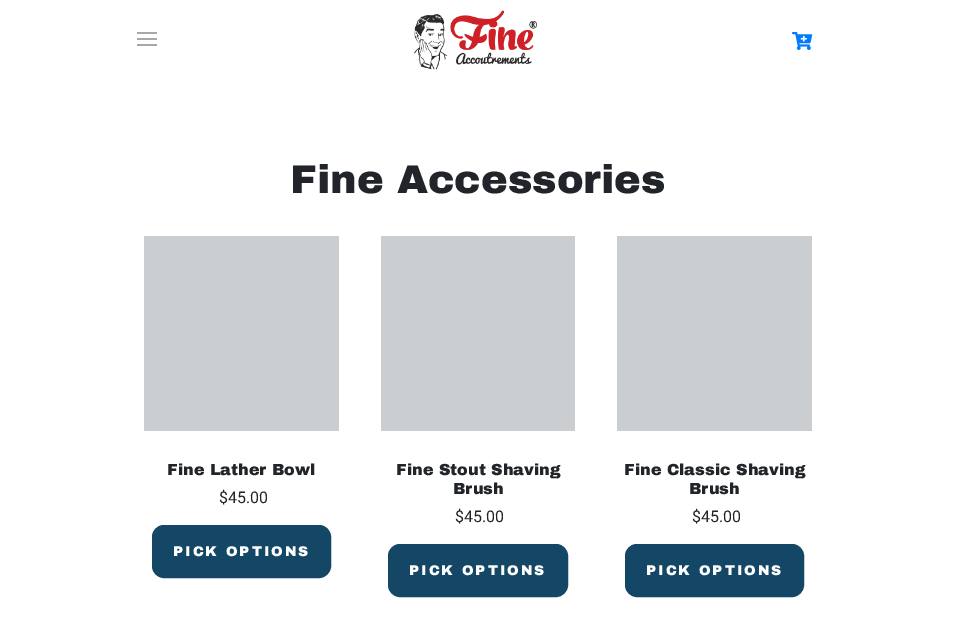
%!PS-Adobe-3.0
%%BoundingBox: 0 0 956 644
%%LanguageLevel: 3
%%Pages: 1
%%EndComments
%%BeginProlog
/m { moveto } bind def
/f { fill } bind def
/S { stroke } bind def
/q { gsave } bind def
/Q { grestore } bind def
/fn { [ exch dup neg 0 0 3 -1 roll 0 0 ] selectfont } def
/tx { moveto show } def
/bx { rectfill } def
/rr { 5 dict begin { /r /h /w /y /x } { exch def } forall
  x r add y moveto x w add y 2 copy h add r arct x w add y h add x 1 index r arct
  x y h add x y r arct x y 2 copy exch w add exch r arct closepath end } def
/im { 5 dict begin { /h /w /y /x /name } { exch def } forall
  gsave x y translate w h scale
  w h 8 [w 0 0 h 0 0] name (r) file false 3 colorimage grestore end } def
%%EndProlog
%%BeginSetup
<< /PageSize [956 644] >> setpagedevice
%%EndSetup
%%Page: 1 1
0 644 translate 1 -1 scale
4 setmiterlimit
1 setgray
0 0 956 644 bx
0.659 setgray
137 38 20 2 bx
137 32 20 2 bx
137 44 20 2 bx
(image0.raw) 414 10 123 60 im
(image1.raw) 792 32 21 18 im
/ArchivoBlack-Black 40 fn
0.129 0.145 0.161 setrgbcolor
(Fine Accessories) 290 193 tx
0.796 0.808 0.82 setrgbcolor
144 236 195 195 bx
/ArchivoBlack-Black 16 fn
0.129 0.145 0.161 setrgbcolor
(Fine Lather Bowl) 167 475 tx
/Roboto-Regular 16 fn
($45.00) 219 503 tx
0.078 0.278 0.4 setrgbcolor
152.5 525.5 178 52 11.5 rr q f Q
S
/ArchivoBlack-Black 14 fn
1 setgray
173 556 m 2 0 (PICK OPTIONS) ashow
0.796 0.808 0.82 setrgbcolor
381 236 194 195 bx
/ArchivoBlack-Black 16 fn
0.129 0.145 0.161 setrgbcolor
(Fine Stout Shaving) 396 475 tx
(Brush) 453 494 tx
/Roboto-Regular 16 fn
($45.00) 455 522 tx
0.078 0.278 0.4 setrgbcolor
388.5 544.5 179 52 11.5 rr q f Q
S
/ArchivoBlack-Black 14 fn
1 setgray
409 575 m 2 0 (PICK OPTIONS) ashow
0.796 0.808 0.82 setrgbcolor
617 236 195 195 bx
/ArchivoBlack-Black 16 fn
0.129 0.145 0.161 setrgbcolor
(Fine Classic Shaving) 624 475 tx
(Brush) 689 494 tx
/Roboto-Regular 16 fn
($45.00) 692 522 tx
0.078 0.278 0.4 setrgbcolor
625.5 544.5 178 52 11.5 rr q f Q
S
/ArchivoBlack-Black 14 fn
1 setgray
646 575 m 2 0 (PICK OPTIONS) ashow
showpage
%%EOF
